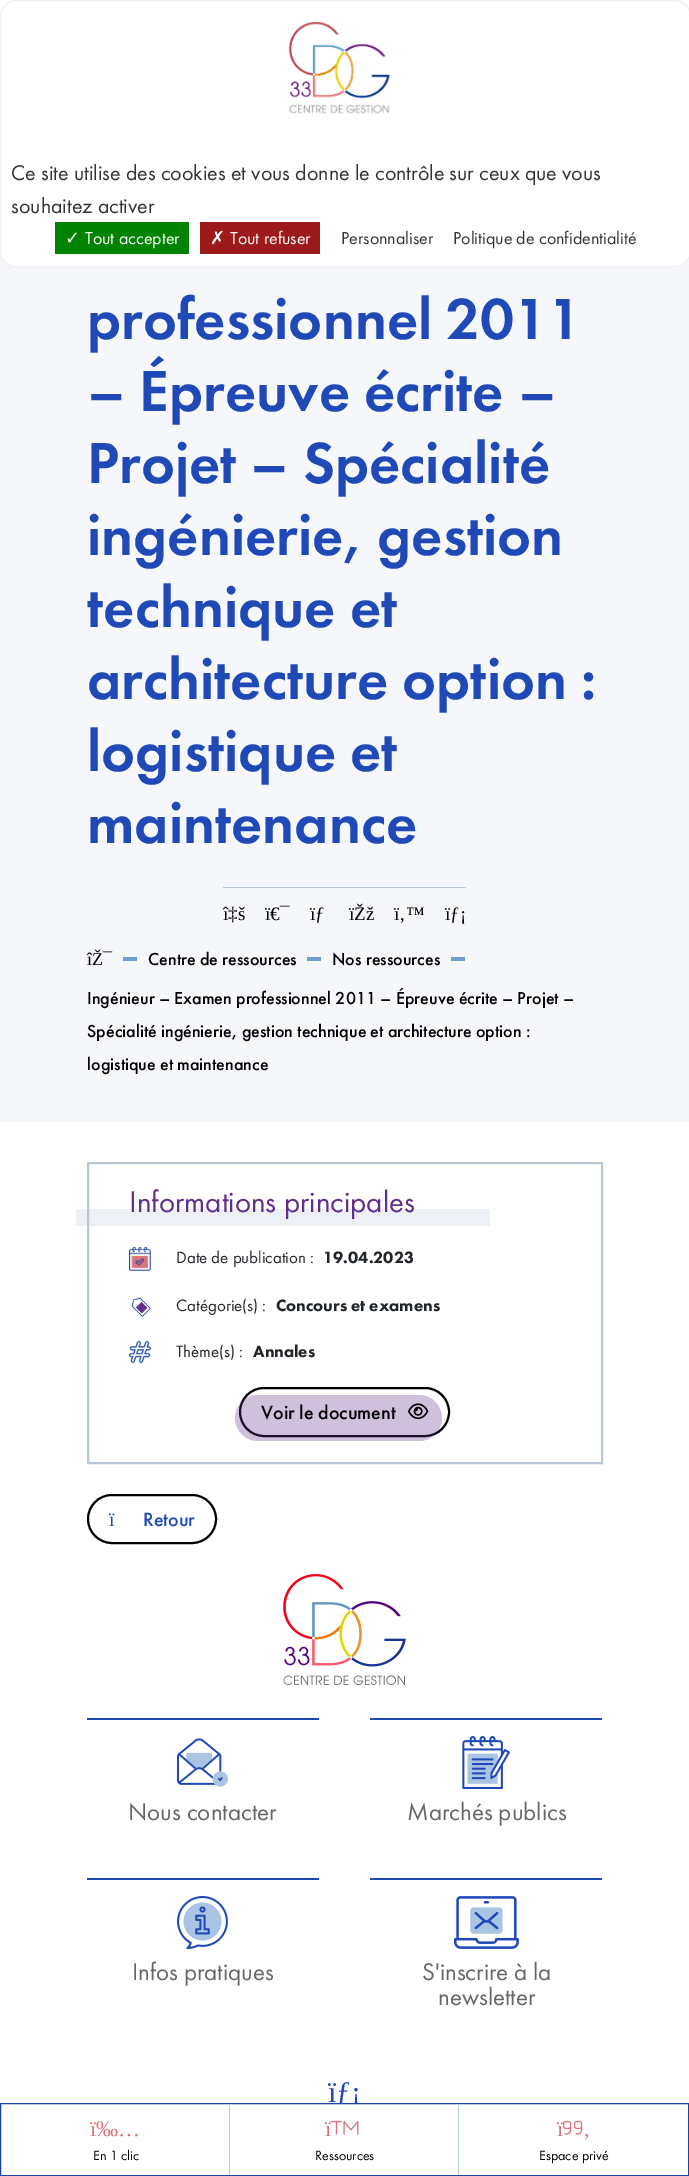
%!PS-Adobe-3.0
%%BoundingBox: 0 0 689 2176
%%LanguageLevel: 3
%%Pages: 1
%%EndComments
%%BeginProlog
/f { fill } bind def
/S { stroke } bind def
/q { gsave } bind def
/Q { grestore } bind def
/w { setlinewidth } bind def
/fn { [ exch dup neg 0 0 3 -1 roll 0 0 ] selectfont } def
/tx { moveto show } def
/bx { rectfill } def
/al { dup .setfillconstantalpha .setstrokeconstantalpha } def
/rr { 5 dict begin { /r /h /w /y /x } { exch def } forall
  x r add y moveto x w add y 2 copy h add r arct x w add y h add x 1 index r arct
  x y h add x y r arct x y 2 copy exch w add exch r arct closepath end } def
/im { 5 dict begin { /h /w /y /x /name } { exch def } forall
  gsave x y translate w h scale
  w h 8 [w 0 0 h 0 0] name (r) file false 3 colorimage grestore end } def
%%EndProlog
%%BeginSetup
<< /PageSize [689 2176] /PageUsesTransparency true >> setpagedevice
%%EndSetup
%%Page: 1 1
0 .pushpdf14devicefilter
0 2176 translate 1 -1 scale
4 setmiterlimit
1 setgray
0 0 689 2176 bx
0.961 0.969 0.98 setrgbcolor
0 251 689 871 bx
1 setgray
0.5 0.5 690 266 15.5 rr q f Q
0.937 0.941 0.949 setrgbcolor
S
(image0.raw) 288 22 103 92 im
/FuturaPT-Regular 22 fn
0.2 setgray
(Ce site utilise des cookies et vous donne le contrôle sur ceux que vous) 11 180 tx
(souhaitez activer) 11 213 tx
0 0.514 0 setrgbcolor
55 222 134 32 bx
/DejaVuSans-Regular 18 fn
1 setgray
(✓) 65 244 tx
/FuturaPT-Regular 18 fn
(Tout accepter) 85 244 tx
0.612 0.102 0.102 setrgbcolor
200 222 120 32 bx
/DejaVuSans-Regular 18 fn
1 setgray
(✗) 210 244 tx
/FuturaPT-Regular 18 fn
(Tout refuser) 230 244 tx
0.2 setgray
(Personnaliser) 341 244 tx
(Politique de confidentialité) 453 244 tx
/FuturaPT-Medium 60 fn
0.122 0.286 0.714 setrgbcolor
(professionnel 2011) 87 339 tx
(– Épreuve écrite –) 87 411 tx
(Projet – Spécialité) 87 483 tx
(ingénierie, gestion) 87 555 tx
(technique et) 87 627 tx
(architecture option :) 87 699 tx
(logistique et) 87 771 tx
(maintenance) 87 843 tx
0.722 0.78 0.839 setrgbcolor
223 887 243 1 bx
/LiberationSerif-Regular 19 fn
0 setgray
(î‡š) 223 920 tx
(ï€¯) 265 920 tx
(ïƒ) 310 920 tx
(ïŽž) 349 920 tx
(ï‚™) 394 920 tx
(ïƒ¡) 445 920 tx
/LiberationSerif-Regular 18 fn
(îŽ¯) 87 965 tx
0.443 0.62 0.82 setrgbcolor
123 957 14 4 bx
/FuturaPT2-Medium 18 fn
0 setgray
(Centre de ressources) 148 965 tx
0.443 0.62 0.82 setrgbcolor
307 957 14 4 bx
0 setgray
(Nos ressources) 332 965 tx
0.443 0.62 0.82 setrgbcolor
451 957 14 4 bx
0 setgray
(Ingénieur – Examen professionnel 2011 – Épreuve écrite – Projet –) 87 1004 tx
(Spécialité ingénierie, gestion technique et architecture option :) 87 1037 tx
(logistique et maintenance) 87 1070 tx
0.929 0.945 0.961 setrgbcolor
76 1209 414 17 bx
0.722 0.78 0.839 setrgbcolor
2 w
88 1163 514 300 rectstroke
/FuturaPT-Regular 31 fn
0.38 0.18 0.537 setrgbcolor
(Informations principales) 129 1212 tx
(image1.raw) 129 1247 22 24 im
/FuturaPT-Regular 17 fn
0.129 0.145 0.161 setrgbcolor
(Date de publication :) 176 1263 tx
/FuturaPT-Black 17 fn
(19.04.2023) 323 1263 tx
(image2.raw) 131 1297 20 20 im
/FuturaPT-Regular 17 fn
(Catégorie\(s\) :) 176 1311 tx
/FuturaPT-Black 17 fn
(Concours et examens) 276 1311 tx
(image3.raw) 129 1341 22 22 im
/FuturaPT-Regular 17 fn
(Thème\(s\) :) 176 1357 tx
/FuturaPT-Black 17 fn
(Annales) 253 1357 tx
0 setgray
240 1388 209 48 24 rr S
0.3 al
0.38 0.18 0.537 setrgbcolor
235 1395 207 46 23 rr f
/FuturaPT2-Medium 20 fn
1 al
0 setgray
(Voir le document) 261 1419 tx
(image4.raw) 408 1403 21 17 im
88 1495 128 48 24 rr S
/LiberationSerif-Regular 20 fn
0.122 0.286 0.714 setrgbcolor
(ï) 109 1526 tx
/FuturaPT2-Medium 20 fn
(Retour) 143 1526 tx
(image5.raw) 283 1574 123 111 im
87 1718 232 2 bx
(image6.raw) 177 1738 51 49 im
/FuturaPT-Regular 25 fn
0.4 setgray
(Nous contacter) 128 1820 tx
0.122 0.286 0.714 setrgbcolor
370 1718 232 2 bx
(image7.raw) 462 1736 48 53 im
0.4 setgray
(Marchés publics) 407 1820 tx
0.122 0.286 0.714 setrgbcolor
87 1878 232 2 bx
(image8.raw) 177 1896 51 53 im
0.4 setgray
(Infos pratiques) 132 1980 tx
0.122 0.286 0.714 setrgbcolor
370 1878 232 2 bx
(image9.raw) 454 1896 65 53 im
0.4 setgray
(S'inscrire à la) 422 1980 tx
(newsletter) 438 2005 tx
/LiberationSerif-Regular 30 fn
0.122 0.286 0.714 setrgbcolor
(ïƒ¡) 328 2102 tx
1 setgray
339 2104 19 4 bx
0.11 0.263 0.651 setrgbcolor
1 w
0.5 2103.5 688 72 rectstroke
/LiberationSerif-Regular 22 fn
0.843 0.459 0.482 setrgbcolor
(ï‰…) 90 2136 tx
0.71 0.792 0.89 setrgbcolor
229 2104 1 71 bx
/FuturaPT-Regular 14 fn
0 setgray
(En 1 clic) 93 2160 tx
/LiberationSerif-Regular 22 fn
0.843 0.459 0.482 setrgbcolor
(ï) 325 2136 tx
(image10.raw) 331 2120 28 15 im
0.71 0.792 0.89 setrgbcolor
458 2104 1 71 bx
/FuturaPT-Regular 14 fn
0 setgray
(Ressources) 315 2160 tx
(image11.raw) 563 2120 20 15 im
/LiberationSerif-Regular 22 fn
0.843 0.459 0.482 setrgbcolor
(ï) 557 2136 tx
(‚) 583 2136 tx
/FuturaPT-Regular 14 fn
0 setgray
(Espace privé) 539 2160 tx
.poppdf14devicefilter showpage
%%EOF
